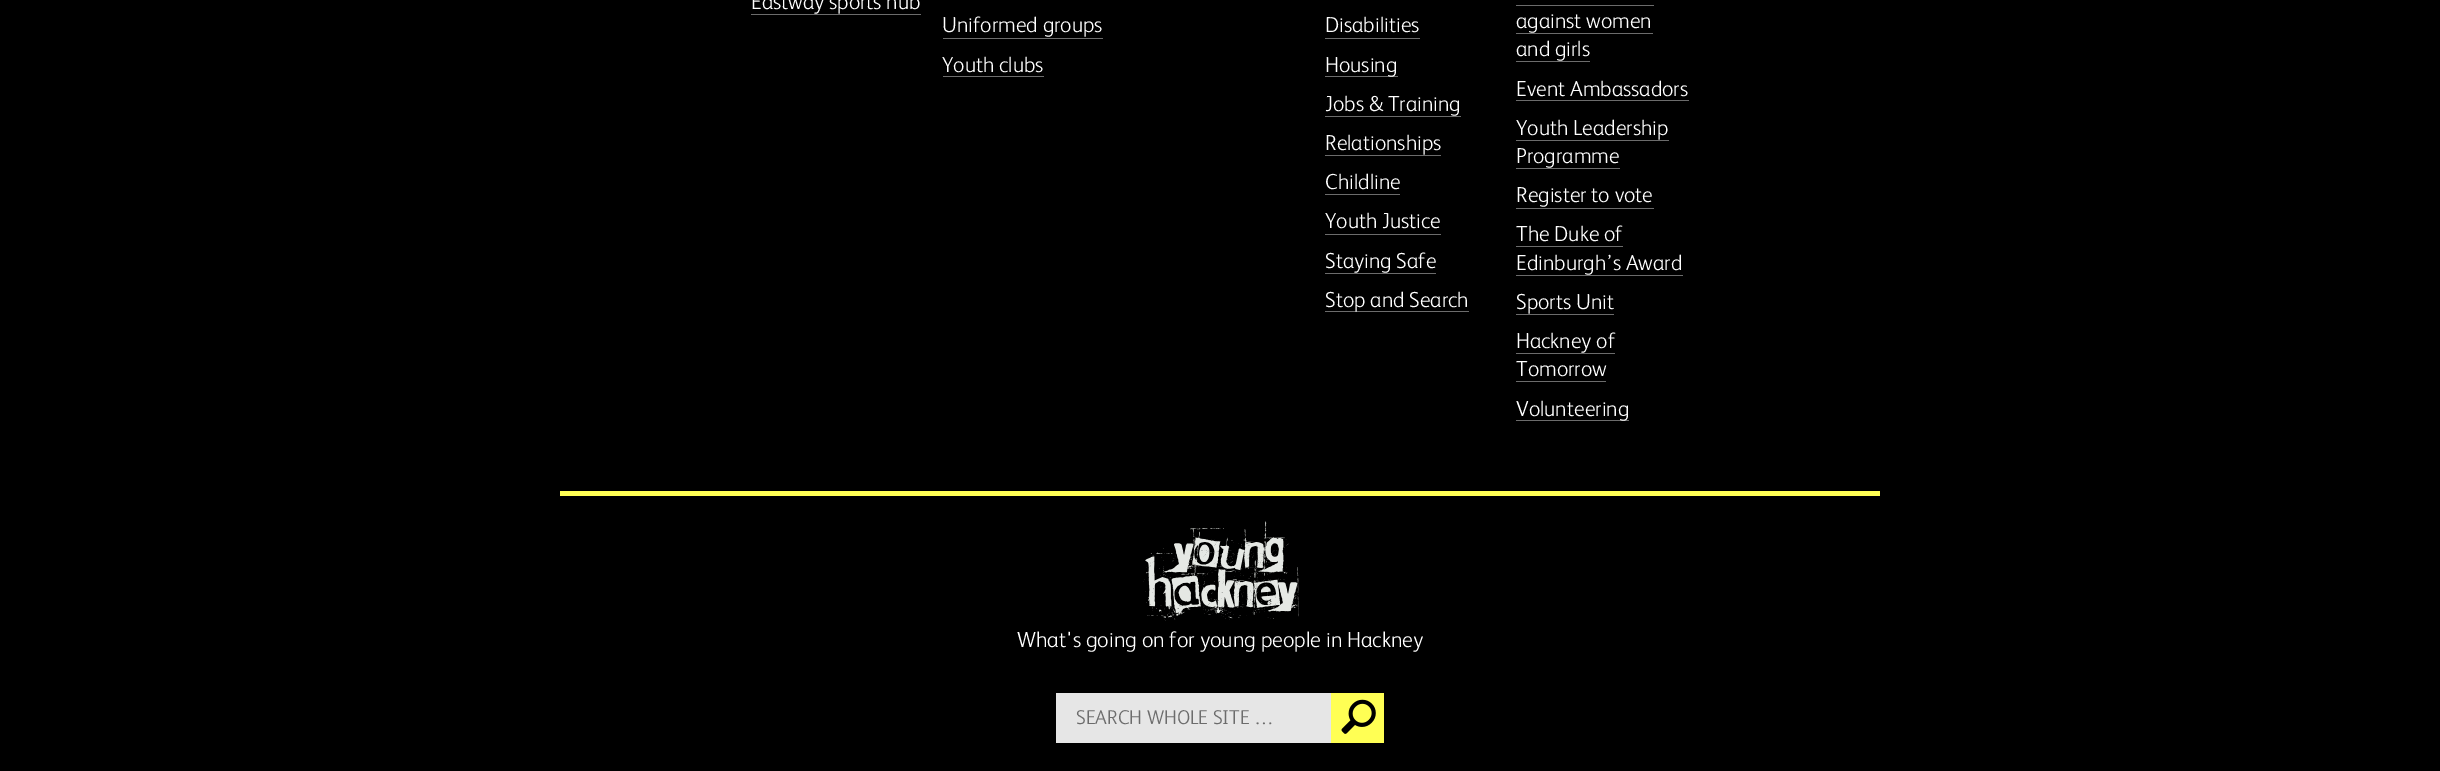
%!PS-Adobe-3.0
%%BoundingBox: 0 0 2440 771
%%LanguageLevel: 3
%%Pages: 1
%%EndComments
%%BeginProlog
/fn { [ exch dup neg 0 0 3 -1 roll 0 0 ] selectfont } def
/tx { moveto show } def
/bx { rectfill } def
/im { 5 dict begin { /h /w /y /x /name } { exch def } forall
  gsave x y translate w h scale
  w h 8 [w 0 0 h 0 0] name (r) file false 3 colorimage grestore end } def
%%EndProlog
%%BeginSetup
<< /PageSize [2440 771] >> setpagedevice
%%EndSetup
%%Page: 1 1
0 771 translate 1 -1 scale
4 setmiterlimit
0 setgray
0 0 2440 771 bx
/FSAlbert-Light 21.75 fn
1 setgray
(Eastway sports hub) 751 9 tx
0.424 setgray
751 14 170 1 bx
1 setgray
(Uniformed groups) 942 32 tx
0.424 setgray
943 38 160 1 bx
1 setgray
(Youth clubs) 942 72 tx
0.424 setgray
943 76 101 1 bx
1 setgray
(Disabilities) 1325 32 tx
0.424 setgray
1325 38 95 1 bx
1325 76 73 1 bx
1 setgray
(Housing) 1325 72 tx
(Jobs & Training) 1325 111 tx
0.424 setgray
1325 116 136 1 bx
1 setgray
(Relationships) 1325 150 tx
0.424 setgray
1325 155 116 1 bx
1 setgray
(Childline) 1325 189 tx
0.424 setgray
1325 194 75 1 bx
1 setgray
(Youth Justice) 1325 228 tx
0.424 setgray
1325 234 116 1 bx
1 setgray
(Staying Safe) 1325 268 tx
0.424 setgray
1325 273 111 1 bx
1325 311 144 1 bx
1 setgray
(Stop and Search) 1325 307 tx
(against women) 1516 28 tx
0.424 setgray
1516 5 138 1 bx
1516 33 137 1 bx
1 setgray
(and girls) 1516 56 tx
0.424 setgray
1516 61 74 1 bx
1 setgray
(Event Ambassadors) 1516 96 tx
0.424 setgray
1516 100 173 1 bx
1 setgray
(Youth Leadership) 1516 135 tx
0.424 setgray
1516 140 153 1 bx
1 setgray
(Programme) 1516 163 tx
0.424 setgray
1516 168 104 1 bx
1 setgray
(Register to vote) 1516 202 tx
0.424 setgray
1516 208 138 1 bx
1 setgray
(The Duke of) 1516 241 tx
0.424 setgray
1516 246 107 1 bx
1 setgray
(Edinburgh’s Award) 1516 270 tx
0.424 setgray
1516 275 167 1 bx
1 setgray
(Sports Unit) 1516 309 tx
0.424 setgray
1516 314 98 1 bx
1 setgray
(Hackney of) 1516 348 tx
0.424 setgray
1516 353 99 1 bx
1 setgray
(Tomorrow) 1516 376 tx
0.424 setgray
1516 381 90 1 bx
1516 420 113 1 bx
1 setgray
(Volunteering) 1516 416 tx
1 1 0.329 setrgbcolor
560 491 1320 5 bx
(image0.raw) 1143 521 156 100 im
/FSAlbert-Light 22 fn
1 setgray
(What's going on for young people in Hackney) 1017 647 tx
0.902 setgray
1056 693 275 50 bx
/FSAlbert-Light 20 fn
0.424 setgray
(SEARCH WHOLE SITE …) 1076 724 tx
1 1 0.329 setrgbcolor
1331 693 53 50 bx
(image1.raw) 1341 699 35 35 im
showpage
%%EOF
